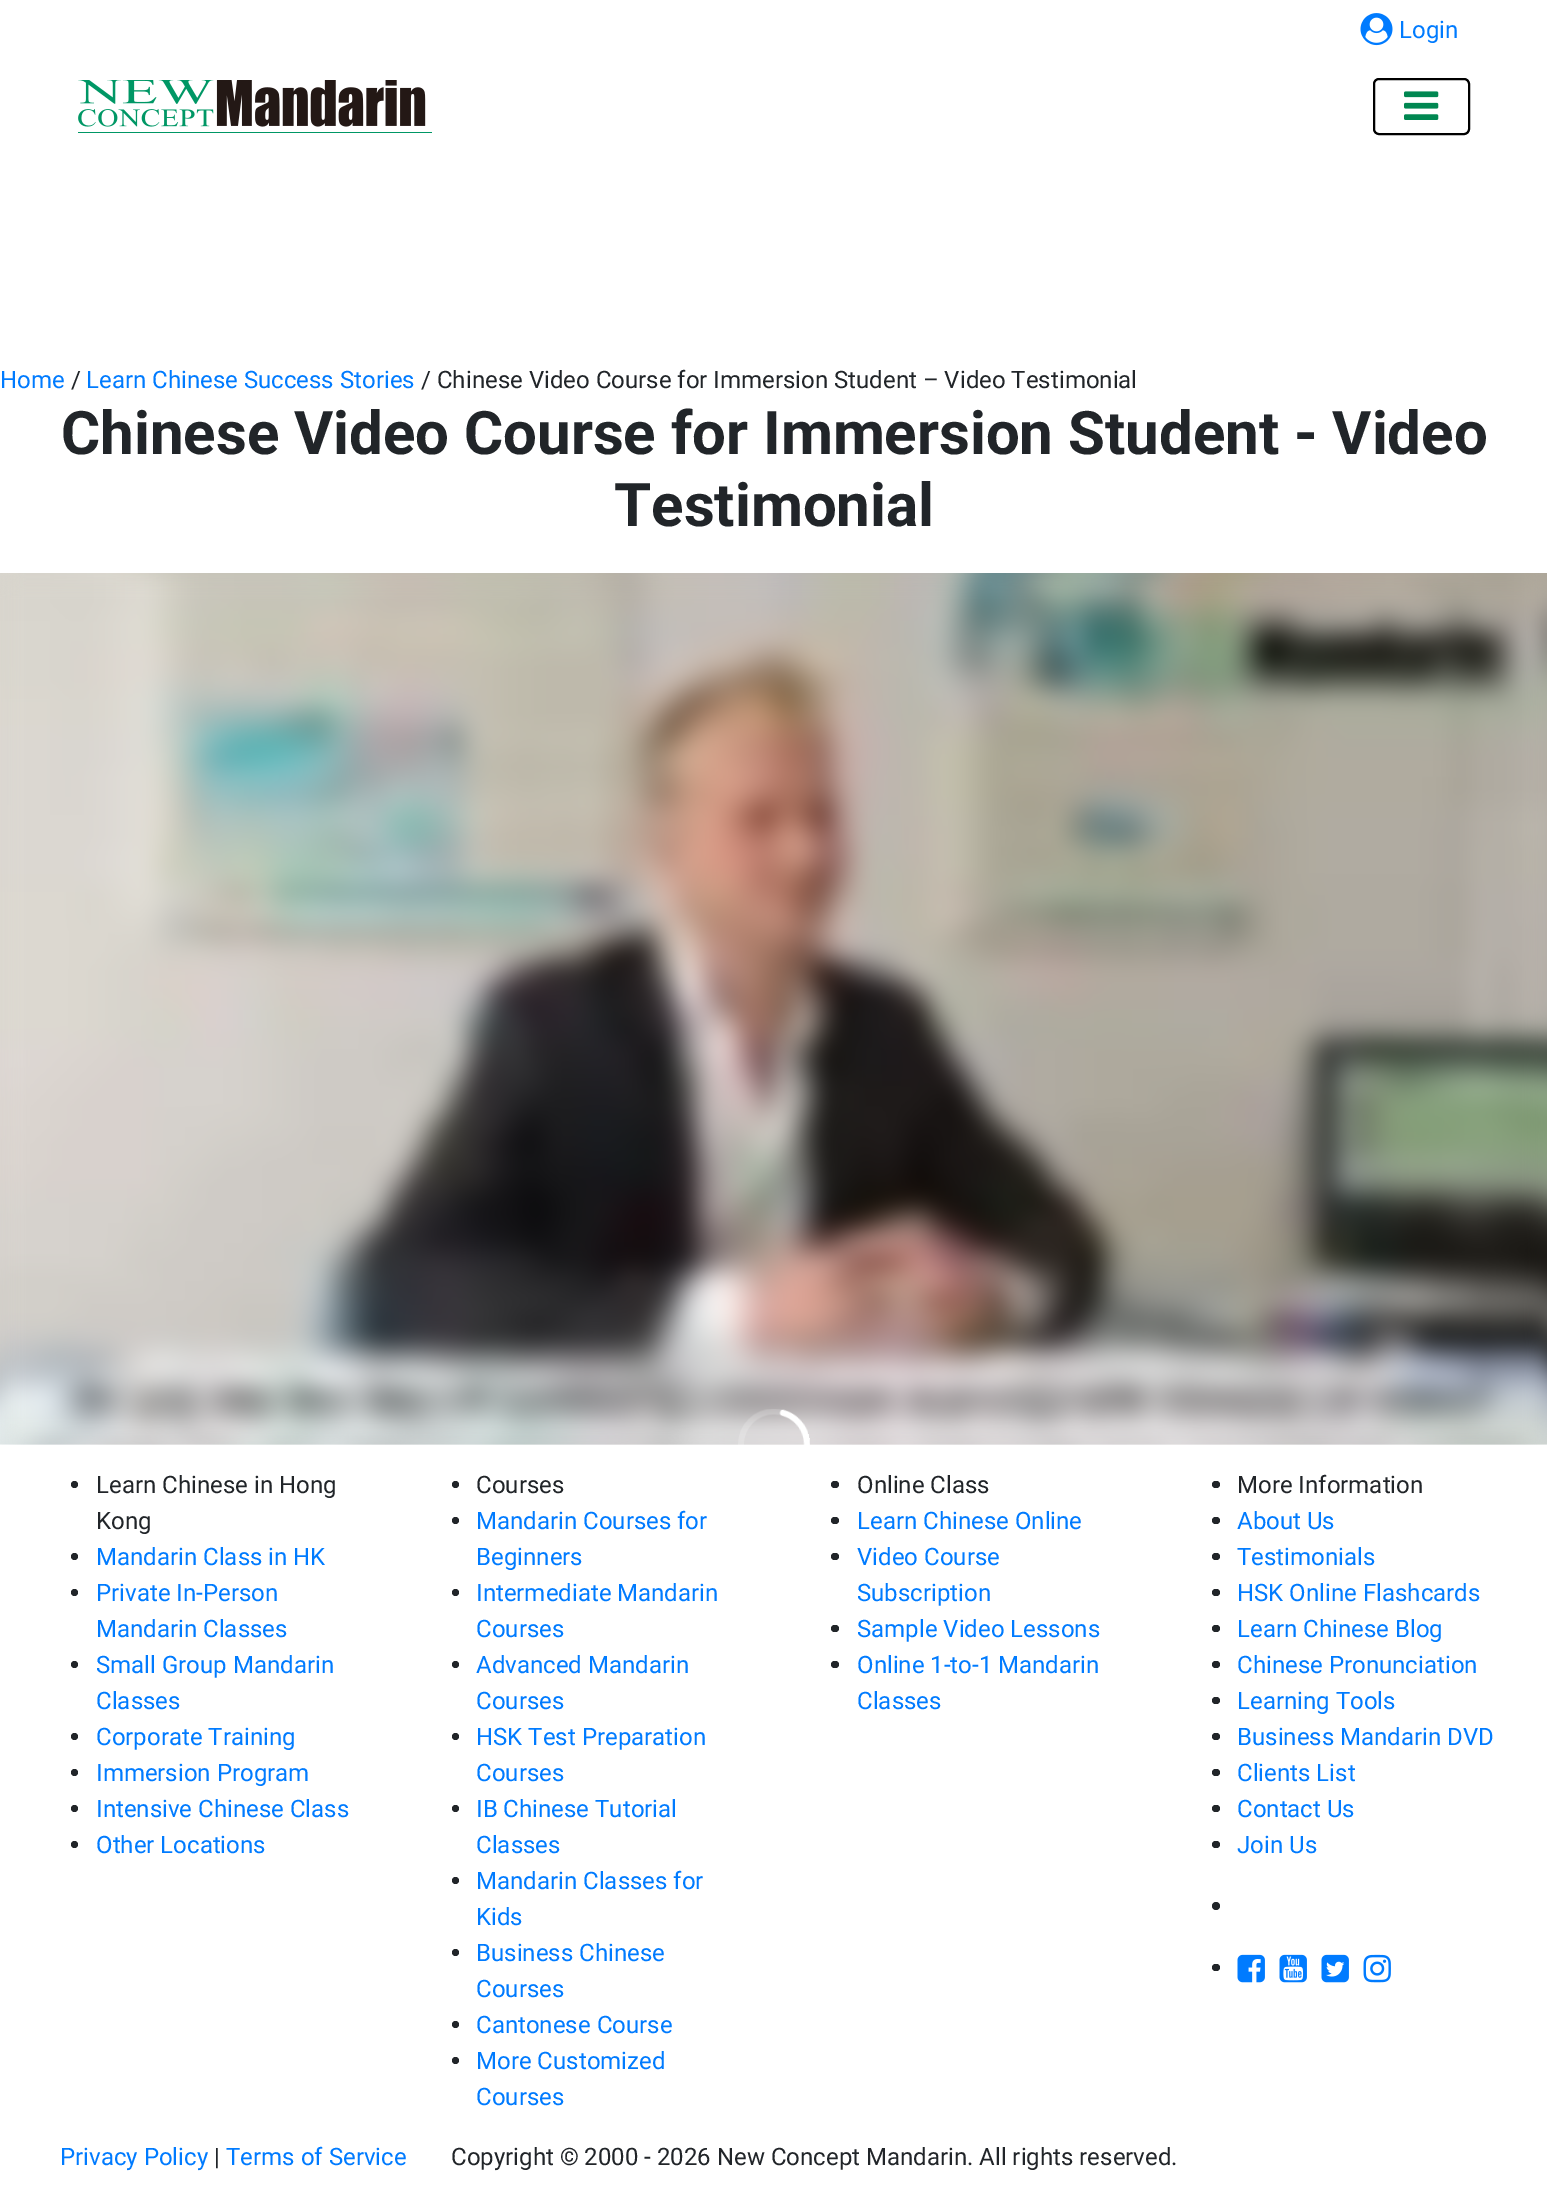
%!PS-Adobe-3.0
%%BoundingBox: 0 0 1547 2186
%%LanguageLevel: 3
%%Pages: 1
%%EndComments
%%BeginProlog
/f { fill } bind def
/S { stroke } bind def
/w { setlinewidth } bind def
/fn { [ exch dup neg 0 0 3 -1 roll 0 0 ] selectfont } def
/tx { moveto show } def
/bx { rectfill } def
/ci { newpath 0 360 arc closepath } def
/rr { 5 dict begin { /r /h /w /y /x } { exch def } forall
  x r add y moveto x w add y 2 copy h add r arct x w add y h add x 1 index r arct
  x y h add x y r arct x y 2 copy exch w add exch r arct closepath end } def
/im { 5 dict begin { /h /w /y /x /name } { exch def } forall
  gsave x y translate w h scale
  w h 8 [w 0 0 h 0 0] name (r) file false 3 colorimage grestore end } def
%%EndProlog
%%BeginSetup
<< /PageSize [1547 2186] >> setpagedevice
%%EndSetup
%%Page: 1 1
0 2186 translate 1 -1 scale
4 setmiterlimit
1 setgray
0 0 1547 2186 bx
(image0.raw) 1360 13 33 33 im
/Roboto-Regular 24 fn
0 0.482 1 setrgbcolor
(Login) 1399 38 tx
(image1.raw) 78 80 354 53 im
0 setgray
2 w
1374 79 95 55 5 rr S
(image2.raw) 1404 91 35 29 im
0 0.482 1 setrgbcolor
(Home) 0 388 tx
0.129 0.145 0.161 setrgbcolor
(/) 71 388 tx
0 0.482 1 setrgbcolor
(Learn Chinese Success Stories) 86 388 tx
0.129 0.145 0.161 setrgbcolor
(/ Chinese Video Course for Immersion Student – Video Testimonial) 421 388 tx
/Roboto-Bold 60 fn
(Chinese Video Course for Immersion Student - Video) 61 454 tx
(Testimonial) 614 526 tx
(image3.raw) 0 573 1547 872 im
74.5 1484.5 3.5 ci f
/Roboto-Regular 24 fn
(Learn Chinese in Hong) 96 1493 tx
(Kong) 96 1529 tx
74.5 1556.5 3.5 ci f
0 0.482 1 setrgbcolor
(Mandarin Class in HK) 96 1565 tx
0.129 0.145 0.161 setrgbcolor
74.5 1592.5 3.5 ci f
0 0.482 1 setrgbcolor
(Private In-Person) 96 1601 tx
(Mandarin Classes) 96 1637 tx
0.129 0.145 0.161 setrgbcolor
74.5 1664.5 3.5 ci f
0 0.482 1 setrgbcolor
(Small Group Mandarin) 96 1673 tx
(Classes) 96 1709 tx
0.129 0.145 0.161 setrgbcolor
74.5 1736.5 3.5 ci f
0 0.482 1 setrgbcolor
(Corporate Training) 96 1745 tx
0.129 0.145 0.161 setrgbcolor
74.5 1772.5 3.5 ci f
0 0.482 1 setrgbcolor
(Immersion Program) 96 1781 tx
0.129 0.145 0.161 setrgbcolor
74.5 1808.5 3.5 ci f
0 0.482 1 setrgbcolor
(Intensive Chinese Class) 96 1817 tx
0.129 0.145 0.161 setrgbcolor
74.5 1844.5 3.5 ci f
0 0.482 1 setrgbcolor
(Other Locations) 96 1853 tx
0.129 0.145 0.161 setrgbcolor
455.5 1484.5 3.5 ci f
(Courses) 476 1493 tx
455.5 1520.5 3.5 ci f
0 0.482 1 setrgbcolor
(Mandarin Courses for) 476 1529 tx
(Beginners) 476 1565 tx
0.129 0.145 0.161 setrgbcolor
455.5 1592.5 3.5 ci f
0 0.482 1 setrgbcolor
(Intermediate Mandarin) 476 1601 tx
(Courses) 476 1637 tx
0.129 0.145 0.161 setrgbcolor
455.5 1664.5 3.5 ci f
0 0.482 1 setrgbcolor
(Advanced Mandarin) 476 1673 tx
(Courses) 476 1709 tx
0.129 0.145 0.161 setrgbcolor
455.5 1736.5 3.5 ci f
0 0.482 1 setrgbcolor
(HSK Test Preparation) 476 1745 tx
(Courses) 476 1781 tx
0.129 0.145 0.161 setrgbcolor
455.5 1808.5 3.5 ci f
0 0.482 1 setrgbcolor
(IB Chinese Tutorial) 476 1817 tx
(Classes) 476 1853 tx
0.129 0.145 0.161 setrgbcolor
455.5 1880.5 3.5 ci f
0 0.482 1 setrgbcolor
(Mandarin Classes for) 476 1889 tx
(Kids) 476 1925 tx
0.129 0.145 0.161 setrgbcolor
455.5 1952.5 3.5 ci f
0 0.482 1 setrgbcolor
(Business Chinese) 476 1961 tx
(Courses) 476 1997 tx
0.129 0.145 0.161 setrgbcolor
455.5 2024.5 3.5 ci f
0 0.482 1 setrgbcolor
(Cantonese Course) 476 2033 tx
0.129 0.145 0.161 setrgbcolor
455.5 2060.5 3.5 ci f
0 0.482 1 setrgbcolor
(More Customized) 476 2069 tx
(Courses) 476 2105 tx
0.129 0.145 0.161 setrgbcolor
831 1481 8 7 3.5 rr f
(Online Class) 857 1493 tx
831 1517 8 7 3.5 rr f
0 0.482 1 setrgbcolor
(Learn Chinese Online) 857 1529 tx
0.129 0.145 0.161 setrgbcolor
831 1553 8 7 3.5 rr f
0 0.482 1 setrgbcolor
(Video Course) 857 1565 tx
(Subscription) 857 1601 tx
0.129 0.145 0.161 setrgbcolor
831 1625 8 7 3.5 rr f
0 0.482 1 setrgbcolor
(Sample Video Lessons) 857 1637 tx
0.129 0.145 0.161 setrgbcolor
831 1661 8 7 3.5 rr f
0 0.482 1 setrgbcolor
(Online 1-to-1 Mandarin) 857 1673 tx
(Classes) 857 1709 tx
0.129 0.145 0.161 setrgbcolor
1212 1481 8 7 3.5 rr f
(More Information) 1237 1493 tx
1212 1517 8 7 3.5 rr f
0 0.482 1 setrgbcolor
(About Us) 1237 1529 tx
0.129 0.145 0.161 setrgbcolor
1212 1553 8 7 3.5 rr f
0 0.482 1 setrgbcolor
(Testimonials) 1237 1565 tx
0.129 0.145 0.161 setrgbcolor
1212 1589 8 7 3.5 rr f
0 0.482 1 setrgbcolor
(HSK Online Flashcards) 1237 1601 tx
0.129 0.145 0.161 setrgbcolor
1212 1625 8 7 3.5 rr f
0 0.482 1 setrgbcolor
(Learn Chinese Blog) 1237 1637 tx
0.129 0.145 0.161 setrgbcolor
1212 1661 8 7 3.5 rr f
0 0.482 1 setrgbcolor
(Chinese Pronunciation) 1237 1673 tx
0.129 0.145 0.161 setrgbcolor
1212 1697 8 7 3.5 rr f
0 0.482 1 setrgbcolor
(Learning Tools) 1237 1709 tx
0.129 0.145 0.161 setrgbcolor
1212 1733 8 7 3.5 rr f
0 0.482 1 setrgbcolor
(Business Mandarin DVD) 1237 1745 tx
0.129 0.145 0.161 setrgbcolor
1212 1769 8 7 3.5 rr f
0 0.482 1 setrgbcolor
(Clients List) 1237 1781 tx
0.129 0.145 0.161 setrgbcolor
1212 1805 8 7 3.5 rr f
0 0.482 1 setrgbcolor
(Contact Us) 1237 1817 tx
0.129 0.145 0.161 setrgbcolor
1212 1841 8 7 3.5 rr f
0 0.482 1 setrgbcolor
(Join Us) 1237 1853 tx
0.129 0.145 0.161 setrgbcolor
1216 1906 4 ci f
1212 1964 8 7 3.5 rr f
(image4.raw) 1237 1954 28 29 im
(image5.raw) 1279 1954 28 29 im
(image6.raw) 1321 1954 28 29 im
(image7.raw) 1363 1954 28 29 im
0 0.482 1 setrgbcolor
(Privacy Policy) 60 2165 tx
0.129 0.145 0.161 setrgbcolor
(|) 214 2165 tx
0 0.482 1 setrgbcolor
(Terms of Service) 226 2165 tx
0.129 0.145 0.161 setrgbcolor
(Copyright © 2000 - 2026 New Concept Mandarin. All rights reserved.) 451 2165 tx
showpage
%%EOF
